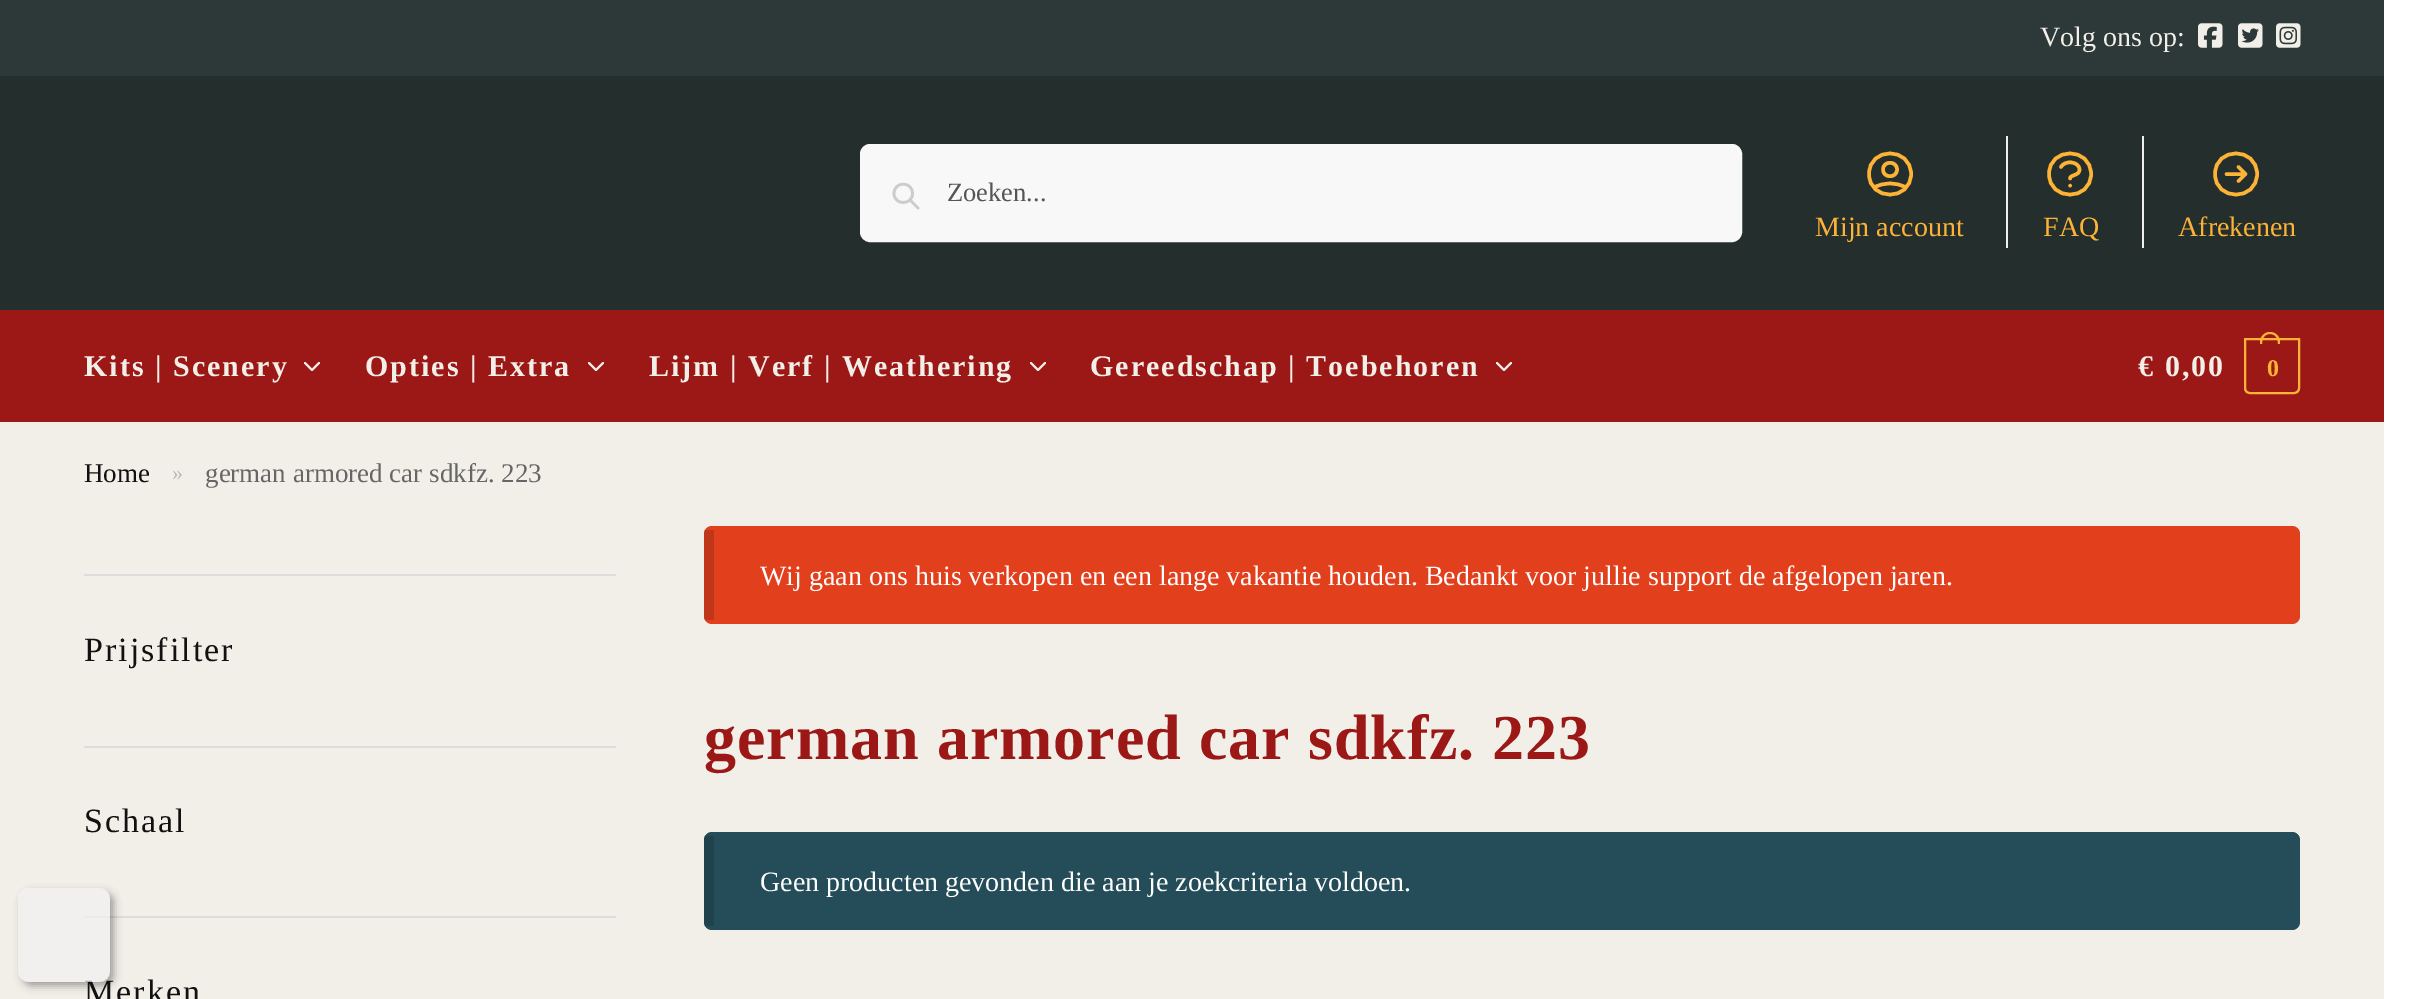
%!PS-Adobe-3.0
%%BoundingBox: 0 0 2414 999
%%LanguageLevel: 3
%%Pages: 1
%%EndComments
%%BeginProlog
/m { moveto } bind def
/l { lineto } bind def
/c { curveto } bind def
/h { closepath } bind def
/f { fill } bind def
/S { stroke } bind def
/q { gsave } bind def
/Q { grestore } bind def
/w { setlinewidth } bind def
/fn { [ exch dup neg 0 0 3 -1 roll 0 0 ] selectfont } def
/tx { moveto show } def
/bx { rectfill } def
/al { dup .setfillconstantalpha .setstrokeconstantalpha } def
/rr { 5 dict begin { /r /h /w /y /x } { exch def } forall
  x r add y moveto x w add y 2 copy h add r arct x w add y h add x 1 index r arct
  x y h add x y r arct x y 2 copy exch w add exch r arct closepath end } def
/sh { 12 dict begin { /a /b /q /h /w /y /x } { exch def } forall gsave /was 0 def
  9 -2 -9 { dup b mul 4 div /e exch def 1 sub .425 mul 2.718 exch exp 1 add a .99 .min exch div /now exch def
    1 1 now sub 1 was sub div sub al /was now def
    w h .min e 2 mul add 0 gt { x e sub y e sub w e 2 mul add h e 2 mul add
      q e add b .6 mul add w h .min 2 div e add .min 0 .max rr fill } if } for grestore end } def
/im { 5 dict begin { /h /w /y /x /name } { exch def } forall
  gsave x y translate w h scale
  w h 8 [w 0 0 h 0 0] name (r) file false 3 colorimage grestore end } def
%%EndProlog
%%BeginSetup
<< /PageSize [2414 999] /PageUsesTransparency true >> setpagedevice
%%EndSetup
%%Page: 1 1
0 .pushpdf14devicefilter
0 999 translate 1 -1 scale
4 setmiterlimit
0.949 0.937 0.914 setrgbcolor
0 0 2414 999 bx
0.867 setgray
84 916 532 2 bx
q
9 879 m 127 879 l 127 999 l 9 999 l h 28 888 m 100 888 l 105.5 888 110 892.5 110 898 c 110 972 l 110 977.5 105.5 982 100 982 c 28 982 l 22.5 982 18 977.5 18 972 c 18 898 l 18 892.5 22.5 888 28 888 c h eoclip newpath
0 setgray
22 892 92 94 10 4 0.33 sh
Q
/LiberationSerif-Regular 34 fn
0.067 setgray
84 1003 m 2 0 (Merken) ashow
0.69 al
0.945 setgray
18 888 92 94 10 rr f
1 al
0.176 0.224 0.22 setrgbcolor
0 0 2384 76 bx
/LiberationSerif-Regular 28 fn
0.949 0.937 0.914 setrgbcolor
(Volg ons op:) 2040 46 tx
(image0.raw) 2198 23 25 25 im
(image1.raw) 2238 23 25 25 im
(image2.raw) 2276 23 25 25 im
1 setgray
2384 0 30 999 bx
0.141 0.18 0.176 setrgbcolor
0 76 2384 234 bx
0.973 setgray
861 145 880 96 9 rr q f Q
2 w
S
0.8 setgray
2.7 w
1 setlinecap
1 setlinejoin
918 208 m 910 200 l 912.5 193.5 m 912.5 205.5 894 205.5 894 193.5 c 894 181 912.5 181 912.5 193.5 c h S
/LiberationSerif-Regular 26.5 fn
0.333 setgray
(Zoeken...) 947 201 tx
0.992 0.702 0.212 setrgbcolor
3.5 w
1874 187.5 m 1884 182 1896 182 1906 187.5 c 1897 169.5 m 1897 178.5 1883 178.5 1883 169.5 c 1883 160.5 1897 160.5 1897 169.5 c h 1911 174 m 1911 201.5 1869 201.5 1869 174 c 1869 146.5 1911 146.5 1911 174 c h S
/LiberationSerif-Regular 28 fn
(Mijn account) 1815 236 tx
0.933 setgray
2006 136 2 112 bx
0.992 0.702 0.212 setrgbcolor
2061 167 m 2064.5 160 2079 161 2079.5 169.5 c 2079.5 176 2070 174.5 2070 178.5 c 2070 185.5 m 2070 185.5 l 2091 174 m 2091 201.5 2049 201.5 2049 174 c 2049 146.5 2091 146.5 2091 174 c h S
(FAQ) 2043 236 tx
0.933 setgray
2142 136 2 112 bx
0.992 0.702 0.212 setrgbcolor
2238.5 167 m 2245.5 174 l 2245.5 174 m 2238.5 181 l 2245.5 174 m 2226.5 174 l 2257 174 m 2257 201.5 2215 201.5 2215 174 c 2215 146.5 2257 146.5 2257 174 c h S
(Afrekenen) 2178 236 tx
0.612 0.094 0.086 setrgbcolor
0 310 2384 112 bx
/LiberationSerif-Bold 30 fn
0.949 0.937 0.914 setrgbcolor
84 376 m 2 0 (Kits | Scenery) ashow
2 w
319 363 m 312 370 l 305 363 l S
365 376 m 2 0 (Opties | Extra) ashow
603 363 m 596 370 l 589 363 l S
649 376 m 2 0 (Lijm | Verf | Weathering) ashow
1045 363 m 1038 370 l 1031 363 l S
1090 376 m 2 0 (Gereedschap | Toebehoren) ashow
1511 363 m 1504 370 l 1497 363 l S
2138 376 m 2 0 (€ 0,00) ashow
0.992 0.702 0.212 setrgbcolor
0 setlinecap
0 setlinejoin
2245 339 m 2299 339 l 2299 388 l 2299 391 2297 393 2294 393 c 2250 393 l 2247 393 2245 391 2245 388 c h S
2270 332 m 2275.5 332 2280 336.5 2280 342 c 2280 344 l 2260 344 l 2260 342 l 2260 336.5 2264.5 332 2270 332 c h 2270 334 m 2276 334 2278 339 2278 344 c 2262 344 l 2262 339 2264 334 2270 334 c h eofill
/LiberationSerif-Bold 24 fn
2267 376 m -1 0 (0) ashow
/LiberationSerif-Regular 27 fn
0.067 setgray
(Home) 84 482 tx
/LiberationSerif-Regular 22 fn
0.729 0.722 0.71 setrgbcolor
(») 172 480 tx
/LiberationSerif-Regular 27 fn
0.4 setgray
(german armored car sdkfz. 223) 205 482 tx
0.867 setgray
84 574 532 2 bx
84 746 532 2 bx
/LiberationSerif-Regular 34 fn
0.067 setgray
84 661 m 2 0 (Prijsfilter) ashow
84 832 m 2 0 (Schaal) ashow
0.886 0.251 0.11 setrgbcolor
704 526 1596 98 8 rr f
0.15 al
0 setgray
704 530 10 90 bx
/LiberationSerif-Regular 28 fn
1 al
1 setgray
(Wij gaan ons huis verkopen en een lange vakantie houden. Bedankt voor jullie support de afgelopen jaren.) 760 585 tx
/LiberationSerif-Bold 64 fn
0.612 0.094 0.086 setrgbcolor
704 759 m 1 0 (german armored car sdkfz. 223) ashow
0.141 0.302 0.349 setrgbcolor
704 832 1596 98 8 rr f
0.15 al
0 setgray
704 836 10 90 bx
/LiberationSerif-Regular 28 fn
1 al
1 setgray
(Geen producten gevonden die aan je zoekcriteria voldoen.) 760 891 tx
.poppdf14devicefilter showpage
%%EOF
